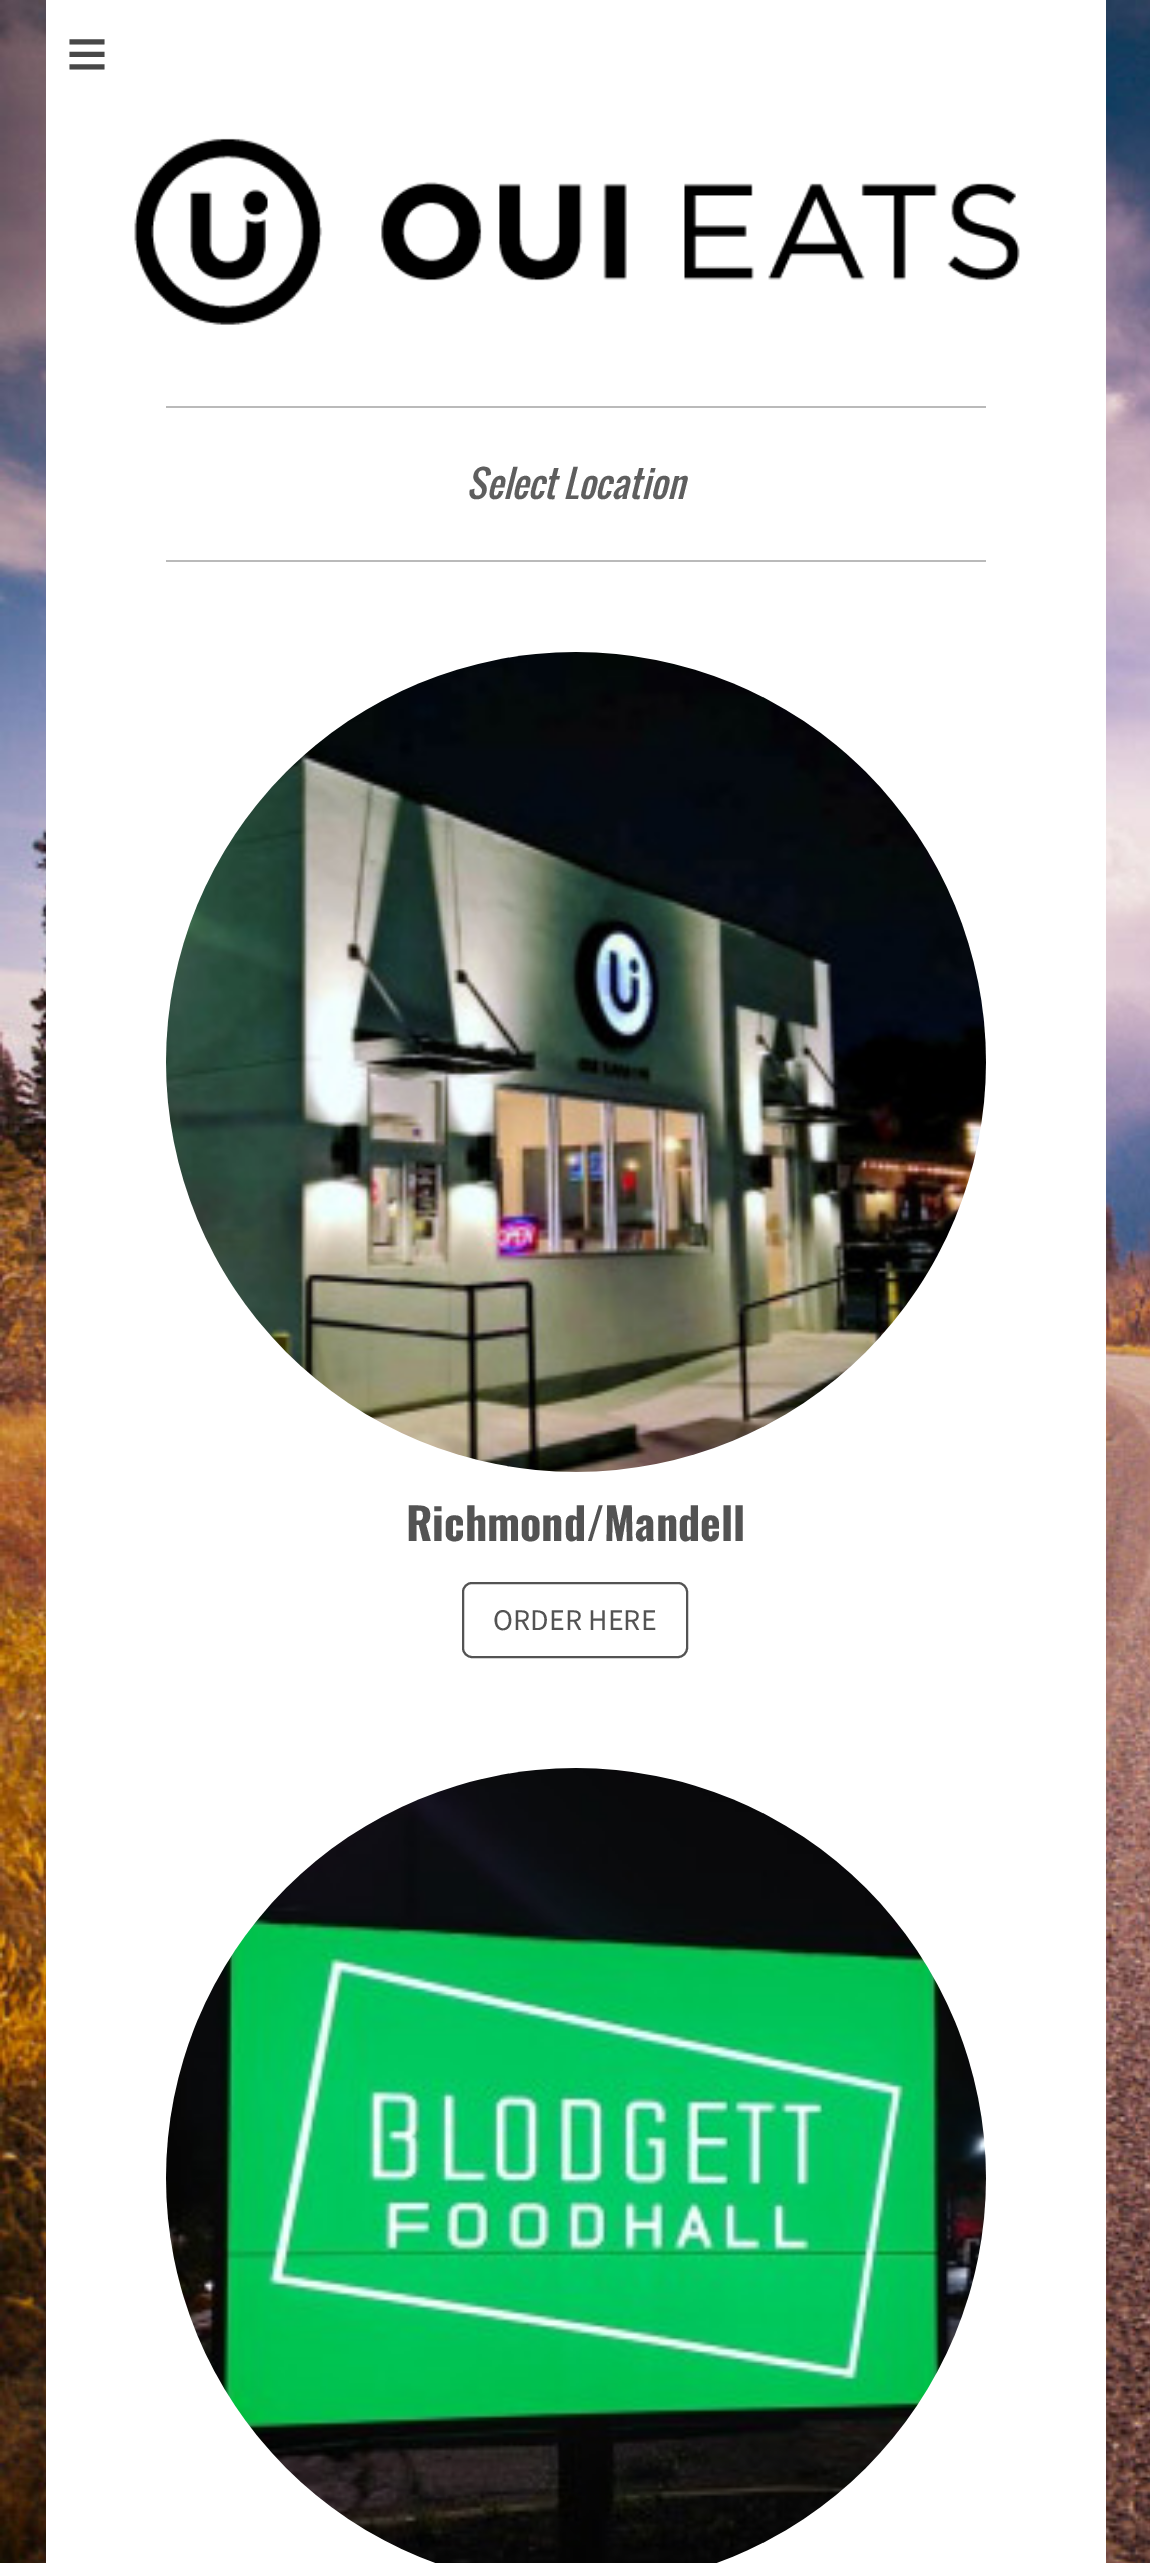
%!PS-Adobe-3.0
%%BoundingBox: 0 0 1150 2563
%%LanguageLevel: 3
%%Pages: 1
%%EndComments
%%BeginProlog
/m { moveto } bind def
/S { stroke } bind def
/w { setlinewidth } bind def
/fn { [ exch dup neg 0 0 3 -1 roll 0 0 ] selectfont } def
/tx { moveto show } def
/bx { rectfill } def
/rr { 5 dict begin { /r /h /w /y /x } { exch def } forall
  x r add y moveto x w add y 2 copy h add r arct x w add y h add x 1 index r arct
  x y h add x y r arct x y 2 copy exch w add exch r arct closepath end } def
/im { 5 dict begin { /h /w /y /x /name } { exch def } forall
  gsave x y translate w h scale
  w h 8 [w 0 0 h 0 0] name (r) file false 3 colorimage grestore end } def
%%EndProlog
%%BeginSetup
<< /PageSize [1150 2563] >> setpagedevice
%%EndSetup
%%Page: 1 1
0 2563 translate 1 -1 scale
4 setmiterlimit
1 setgray
0 0 1150 2563 bx
(image0.raw) 0 0 1150 2563 im
46 0 1060 2563 bx
/LiberationSans-Regular 72 fn
0.278 setgray
66 78 m 21 0 (≡) ashow
(image1.raw) 134 138 886 187 im
0.729 setgray
166 406 820 2 bx
/Oswald-Italic 36.75 fn
0.369 setgray
(Select Location) 466 499 tx
0.729 setgray
166 560 820 2 bx
(image2.raw) 166 652 820 820 im
/Oswald-Bold 44 fn
0.325 setgray
(Richmond/Mandell) 406 1541 tx
2 w
463 1583 224 74 9 rr S
/SourceSansPro-Regular 30 fn
(ORDER HERE) 493 1630 tx
(image3.raw) 166 1768 820 795 im
showpage
%%EOF
